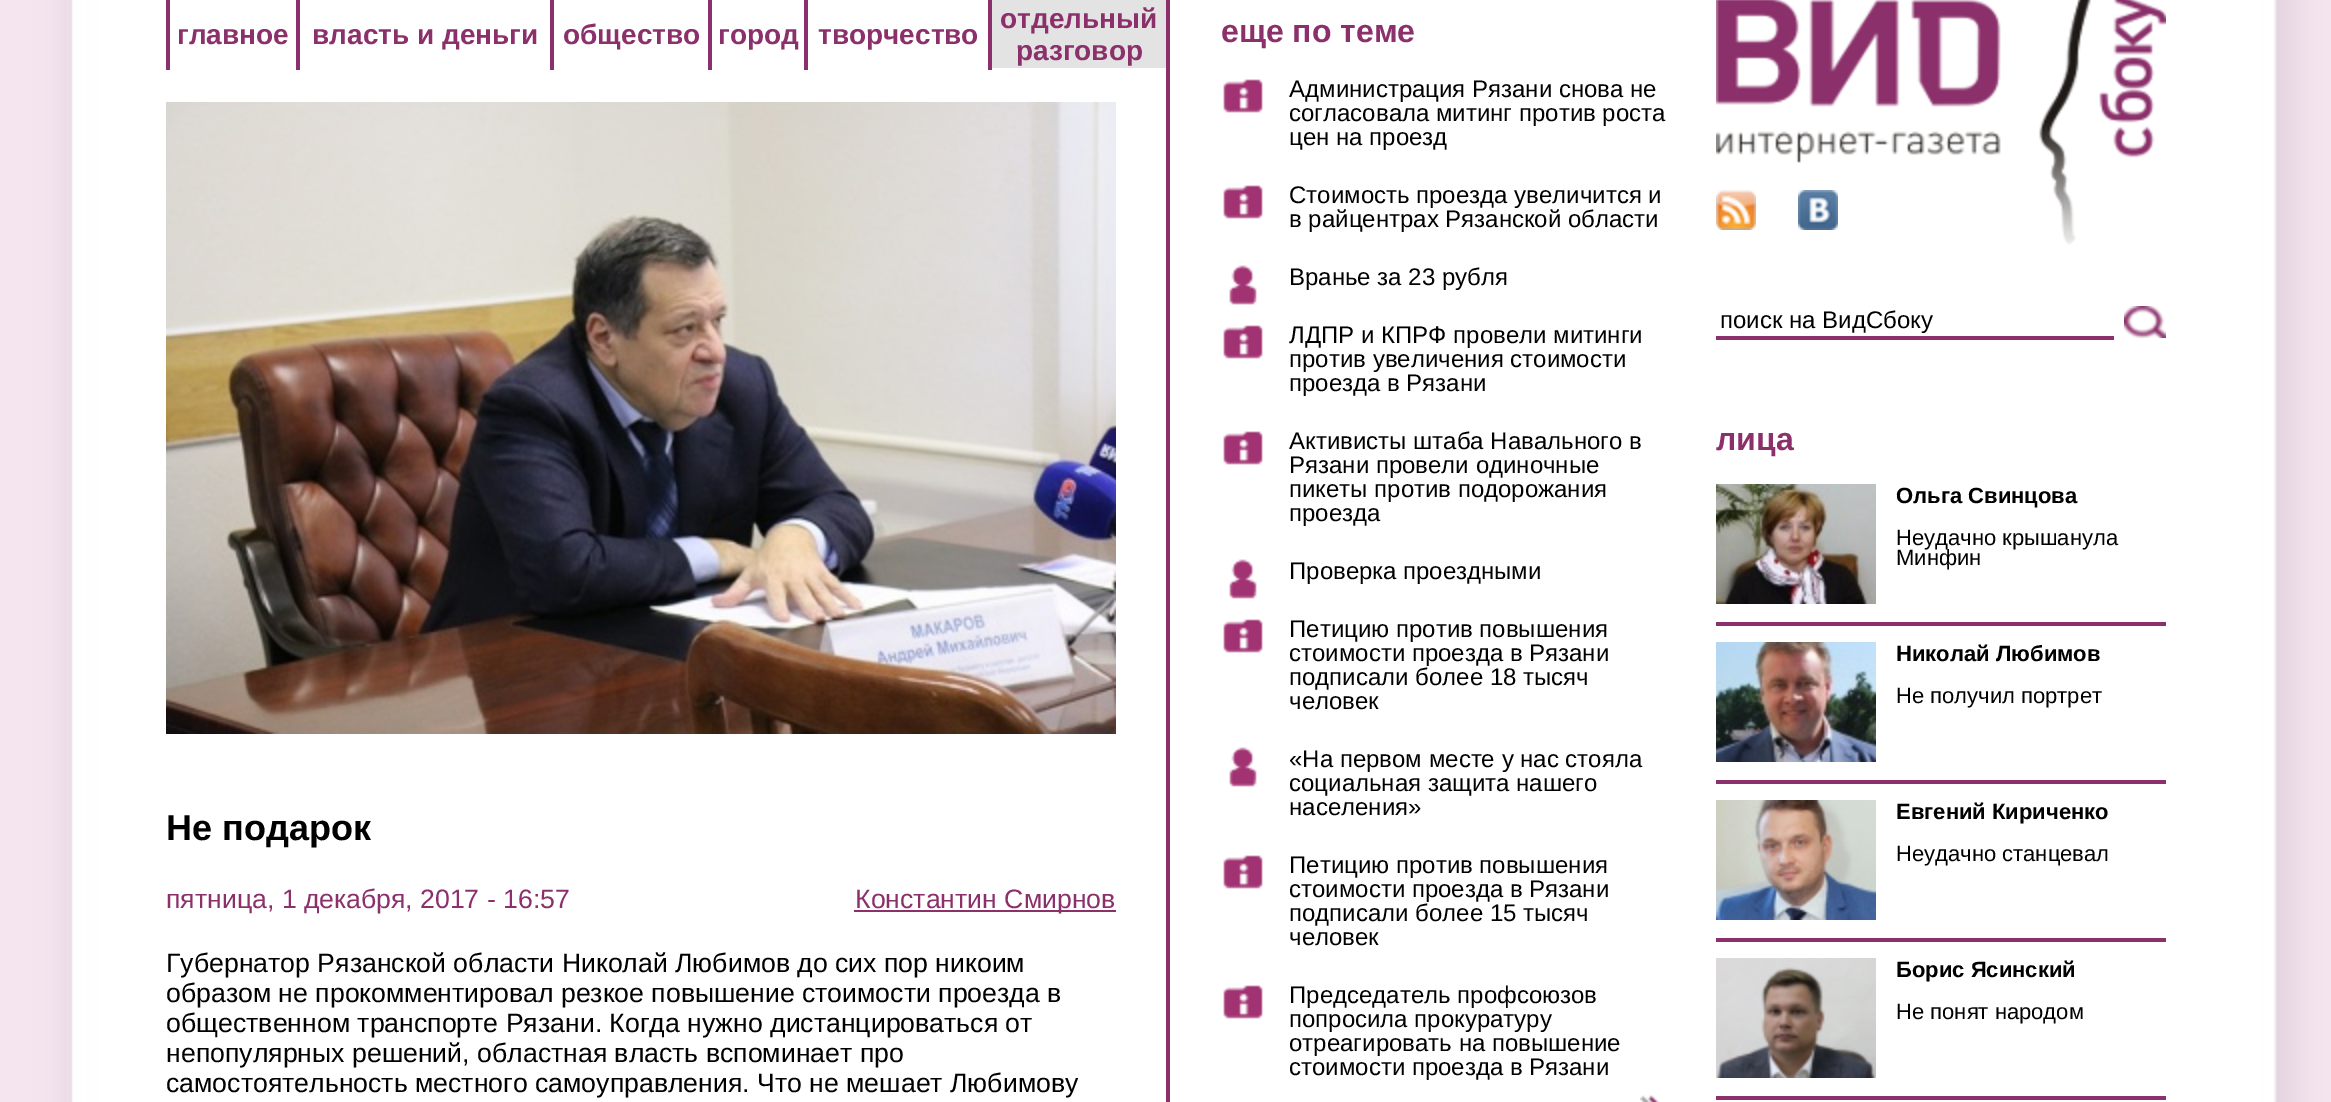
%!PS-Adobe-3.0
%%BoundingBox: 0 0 2331 1102
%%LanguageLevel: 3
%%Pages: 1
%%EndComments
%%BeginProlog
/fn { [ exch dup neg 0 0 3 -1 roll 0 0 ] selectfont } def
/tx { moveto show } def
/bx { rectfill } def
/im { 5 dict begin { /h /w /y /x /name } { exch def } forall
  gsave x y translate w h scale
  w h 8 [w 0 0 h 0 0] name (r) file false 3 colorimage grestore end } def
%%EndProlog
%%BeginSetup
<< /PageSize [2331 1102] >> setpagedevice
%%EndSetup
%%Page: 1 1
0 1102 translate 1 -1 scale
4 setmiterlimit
1 setgray
0 0 2331 1102 bx
(image0.raw) 0 0 2331 1102 im
0.545 0.188 0.416 setrgbcolor
166 0 4 70 bx
/LiberationSans-Bold 28 fn
(главное) 177 44 tx
296 0 4 70 bx
(власть и деньги) 312 44 tx
550 0 4 70 bx
(общество) 563 44 tx
708 0 4 70 bx
(город) 718 44 tx
804 0 4 70 bx
(творчество) 818 44 tx
0.89 setgray
992 0 174 68 bx
0.545 0.188 0.416 setrgbcolor
988 0 4 70 bx
(отдельный) 1000 28 tx
(разговор) 1016 60 tx
(image1.raw) 166 102 950 632 im
/LiberationSans-Bold 36 fn
0 setgray
(Не подарок) 166 840 tx
/LiberationSans-Regular 26.65 fn
0.545 0.188 0.416 setrgbcolor
(пятница, 1 декабря, 2017 - 16:57) 166 908 tx
854 910 262 2 bx
(Константин Смирнов) 855 908 tx
0 setgray
(Губернатор Рязанской области Николай Любимов до сих пор никоим) 166 972 tx
(образом не прокомментировал резкое повышение стоимости проезда в) 166 1002 tx
(общественном транспорте Рязани. Когда нужно дистанцироваться от) 166 1032 tx
(непопулярных решений, областная власть вспоминает про) 166 1062 tx
(самостоятельность местного самоуправления. Что не мешает Любимову) 166 1092 tx
0.545 0.188 0.416 setrgbcolor
1166 0 4 1102 bx
/LiberationSans-Bold 32 fn
(еще по теме) 1221 42 tx
(image2.raw) 1223 79 40 34 im
/LiberationSans-Regular 24 fn
0 setgray
(Администрация Рязани снова не) 1289 97 tx
(согласовала митинг против роста) 1289 121 tx
(цен на проезд) 1289 145 tx
(image2.raw) 1223 185 40 34 im
(Стоимость проезда увеличится и) 1289 203 tx
(в райцентрах Рязанской области) 1289 227 tx
(image3.raw) 1229 265 28 40 im
(Вранье за 23 рубля) 1289 285 tx
(image2.raw) 1223 325 40 34 im
(ЛДПР и КПРФ провели митинги) 1289 343 tx
(против увеличения стоимости) 1289 367 tx
(проезда в Рязани) 1289 391 tx
(image2.raw) 1223 431 40 34 im
(Активисты штаба Навального в) 1289 449 tx
(Рязани провели одиночные) 1289 473 tx
(пикеты против подорожания) 1289 497 tx
(проезда) 1289 521 tx
(image3.raw) 1229 559 28 40 im
(Проверка проездными) 1289 579 tx
(image2.raw) 1223 619 40 34 im
(Петицию против повышения) 1289 637 tx
(стоимости проезда в Рязани) 1289 661 tx
(подписали более 18 тысяч) 1289 685 tx
(человек) 1289 709 tx
(image3.raw) 1229 747 28 40 im
(«На первом месте у нас стояла) 1289 767 tx
(социальная защита нашего) 1289 791 tx
(населения») 1289 815 tx
(image2.raw) 1223 855 40 34 im
(Петицию против повышения) 1289 873 tx
(стоимости проезда в Рязани) 1289 897 tx
(подписали более 15 тысяч) 1289 921 tx
(человек) 1289 945 tx
(image2.raw) 1223 985 40 34 im
(Председатель профсоюзов) 1289 1003 tx
(попросила прокуратуру) 1289 1027 tx
(отреагировать на повышение) 1289 1051 tx
(стоимости проезда в Рязани) 1289 1075 tx
(image4.raw) 1640 1095 20 7 im
(image5.raw) 1716 0 450 245 im
(image6.raw) 1716 190 40 40 im
(image7.raw) 1798 190 40 40 im
0.545 0.188 0.416 setrgbcolor
1716 336 398 4 bx
0 setgray
(поиск на ВидСбоку) 1720 328 tx
(image8.raw) 2124 306 42 32 im
/LiberationSans-Bold 32 fn
0.545 0.188 0.416 setrgbcolor
(лица) 1716 450 tx
1716 622 450 4 bx
(image9.raw) 1716 484 160 120 im
/LiberationSans-Bold 22 fn
0 setgray
(Ольга Свинцова) 1896 503 tx
/LiberationSans-Regular 22 fn
(Неудачно крышанула) 1896 545 tx
(Минфин) 1896 565 tx
0.545 0.188 0.416 setrgbcolor
1716 780 450 4 bx
(image10.raw) 1716 642 160 120 im
/LiberationSans-Bold 22 fn
0 setgray
(Николай Любимов) 1896 661 tx
/LiberationSans-Regular 22 fn
(Не получил портрет) 1896 703 tx
0.545 0.188 0.416 setrgbcolor
1716 938 450 4 bx
(image11.raw) 1716 800 160 120 im
/LiberationSans-Bold 22 fn
0 setgray
(Евгений Кириченко) 1896 819 tx
/LiberationSans-Regular 22 fn
(Неудачно станцевал) 1896 861 tx
0.545 0.188 0.416 setrgbcolor
1716 1096 450 4 bx
(image12.raw) 1716 958 160 120 im
/LiberationSans-Bold 22 fn
0 setgray
(Борис Ясинский) 1896 977 tx
/LiberationSans-Regular 22 fn
(Не понят народом) 1896 1019 tx
showpage
%%EOF
